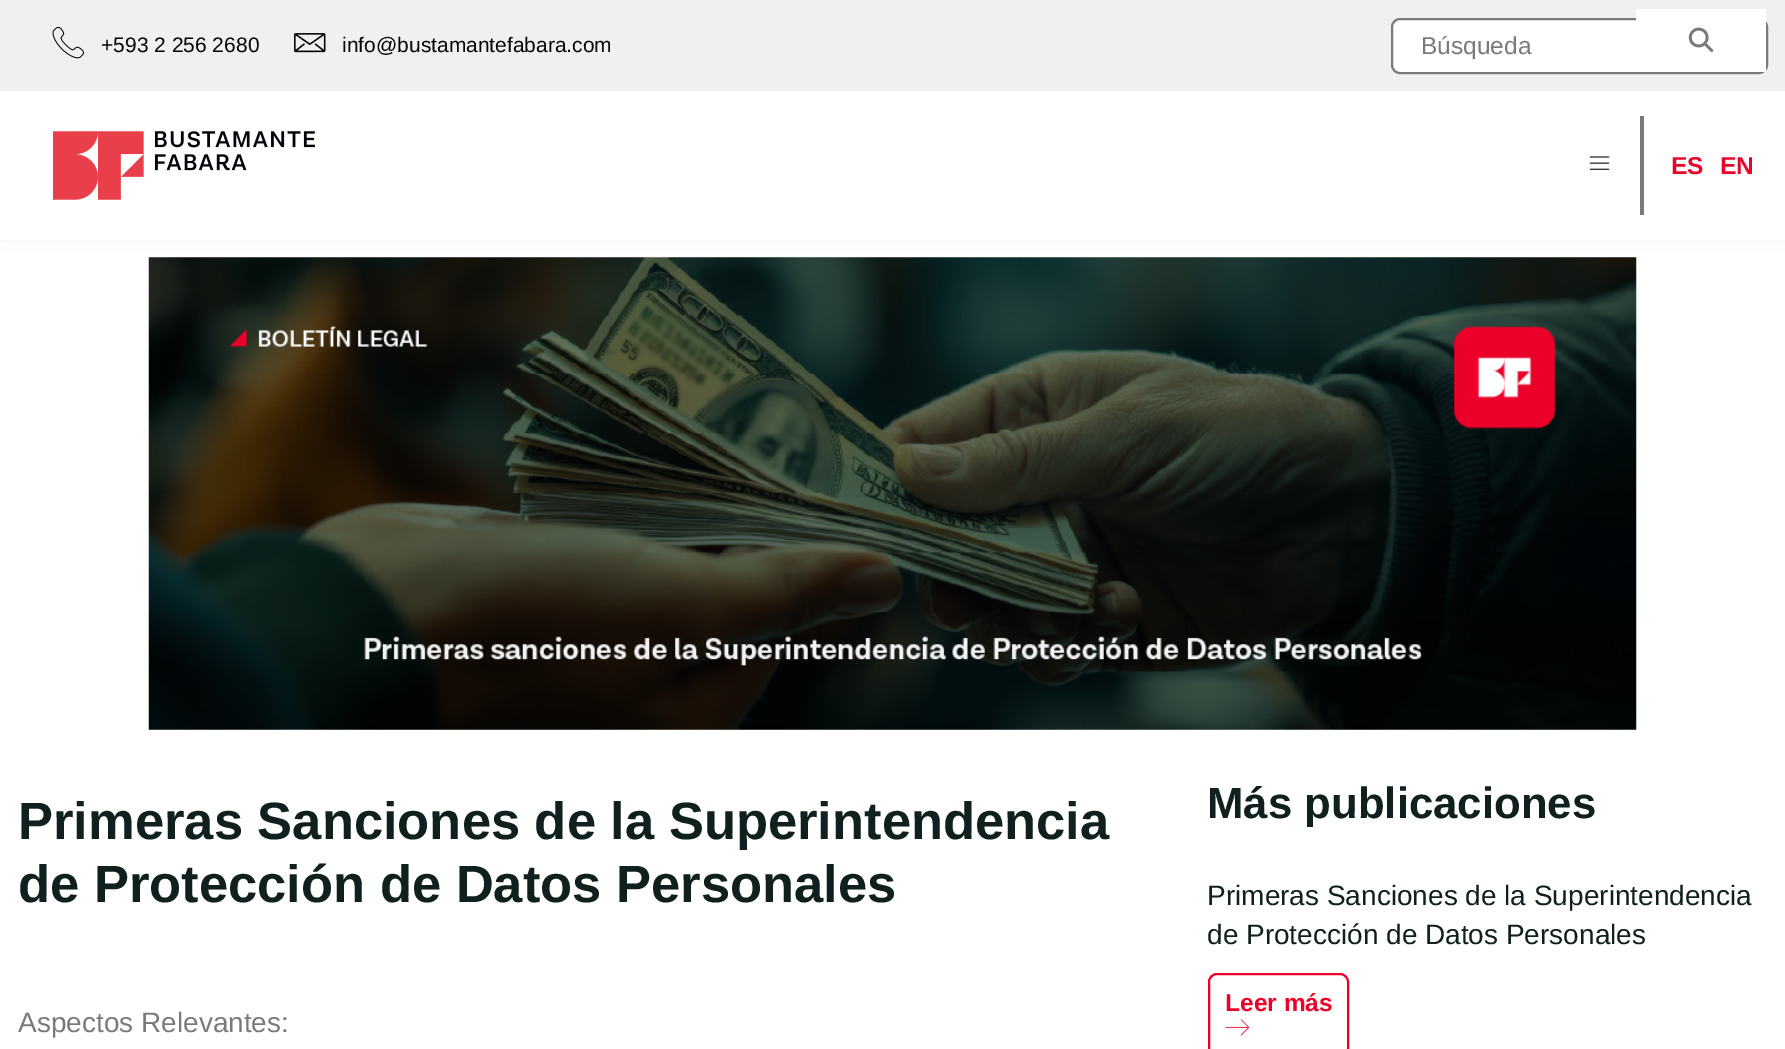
%!PS-Adobe-3.0
%%BoundingBox: 0 0 1785 1049
%%LanguageLevel: 3
%%Pages: 1
%%EndComments
%%BeginProlog
/f { fill } bind def
/S { stroke } bind def
/q { gsave } bind def
/Q { grestore } bind def
/w { setlinewidth } bind def
/fn { [ exch dup neg 0 0 3 -1 roll 0 0 ] selectfont } def
/tx { moveto show } def
/bx { rectfill } def
/al { dup .setfillconstantalpha .setstrokeconstantalpha } def
/rr { 5 dict begin { /r /h /w /y /x } { exch def } forall
  x r add y moveto x w add y 2 copy h add r arct x w add y h add x 1 index r arct
  x y h add x y r arct x y 2 copy exch w add exch r arct closepath end } def
/sh { 12 dict begin { /a /b /q /h /w /y /x } { exch def } forall gsave /was 0 def
  9 -2 -9 { dup b mul 4 div /e exch def 1 sub .425 mul 2.718 exch exp 1 add a .99 .min exch div /now exch def
    1 1 now sub 1 was sub div sub al /was now def
    w h .min e 2 mul add 0 gt { x e sub y e sub w e 2 mul add h e 2 mul add
      q e add b .6 mul add w h .min 2 div e add .min 0 .max rr fill } if } for grestore end } def
/im { 5 dict begin { /h /w /y /x /name } { exch def } forall
  gsave x y translate w h scale
  w h 8 [w 0 0 h 0 0] name (r) file false 3 colorimage grestore end } def
%%EndProlog
%%BeginSetup
<< /PageSize [1785 1049] /PageUsesTransparency true >> setpagedevice
%%EndSetup
%%Page: 1 1
0 .pushpdf14devicefilter
0 1049 translate 1 -1 scale
4 setmiterlimit
1 setgray
0 0 1785 1049 bx
(image5.raw) 148 257 1489 473 im
0 setgray
0 91 1785 149 0 9 0.05 sh
0.941 setgray
0 0 1785 91 bx
(image0.raw) 52 26 32 33 im
/LiberationSans-Regular 21 fn
0.016 0.02 0.024 setrgbcolor
(+593 2 256 2680) 101 52 tx
(image1.raw) 294 33 32 20 im
(info@bustamantefabara.com) 342 52 tx
1 setgray
1392 19 375 54 8 rr q f Q
0.478 setgray
2 w
S
/LiberationSans-Regular 24.5 fn
(Búsqueda) 1421 54 tx
1 setgray
1636 9 130 63 bx
(image2.raw) 1688 27 26 25 im
0 91 1785 149 bx
(image3.raw) 53 131 262 69 im
0.478 setgray
1640 116 4 99 bx
(image4.raw) 1589 156 21 14 im
/LiberationSans-Bold 24.5 fn
0.918 0 0.161 setrgbcolor
(ES) 1671 174 tx
(EN) 1720 174 tx
/LiberationSans-Bold 52.5 fn
0.059 0.125 0.122 setrgbcolor
(Primeras Sanciones de la Superintendencia) 18 839 tx
(de Protección de Datos Personales) 18 902 tx
/LiberationSans-Regular 28 fn
0.478 setgray
(Aspectos Relevantes:) 18 1032 tx
/LiberationSans-Bold 43.75 fn
0.059 0.125 0.122 setrgbcolor
(Más publicaciones) 1207 818 tx
/LiberationSans-Regular 28 fn
(Primeras Sanciones de la Superintendencia) 1207 905 tx
(de Protección de Datos Personales) 1207 944 tx
0.918 0 0.161 setrgbcolor
1209 974 139 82 8 rr S
/LiberationSans-Bold 24.5 fn
(Leer más) 1225 1011 tx
(image6.raw) 1225 1019 25 17 im
.poppdf14devicefilter showpage
%%EOF
